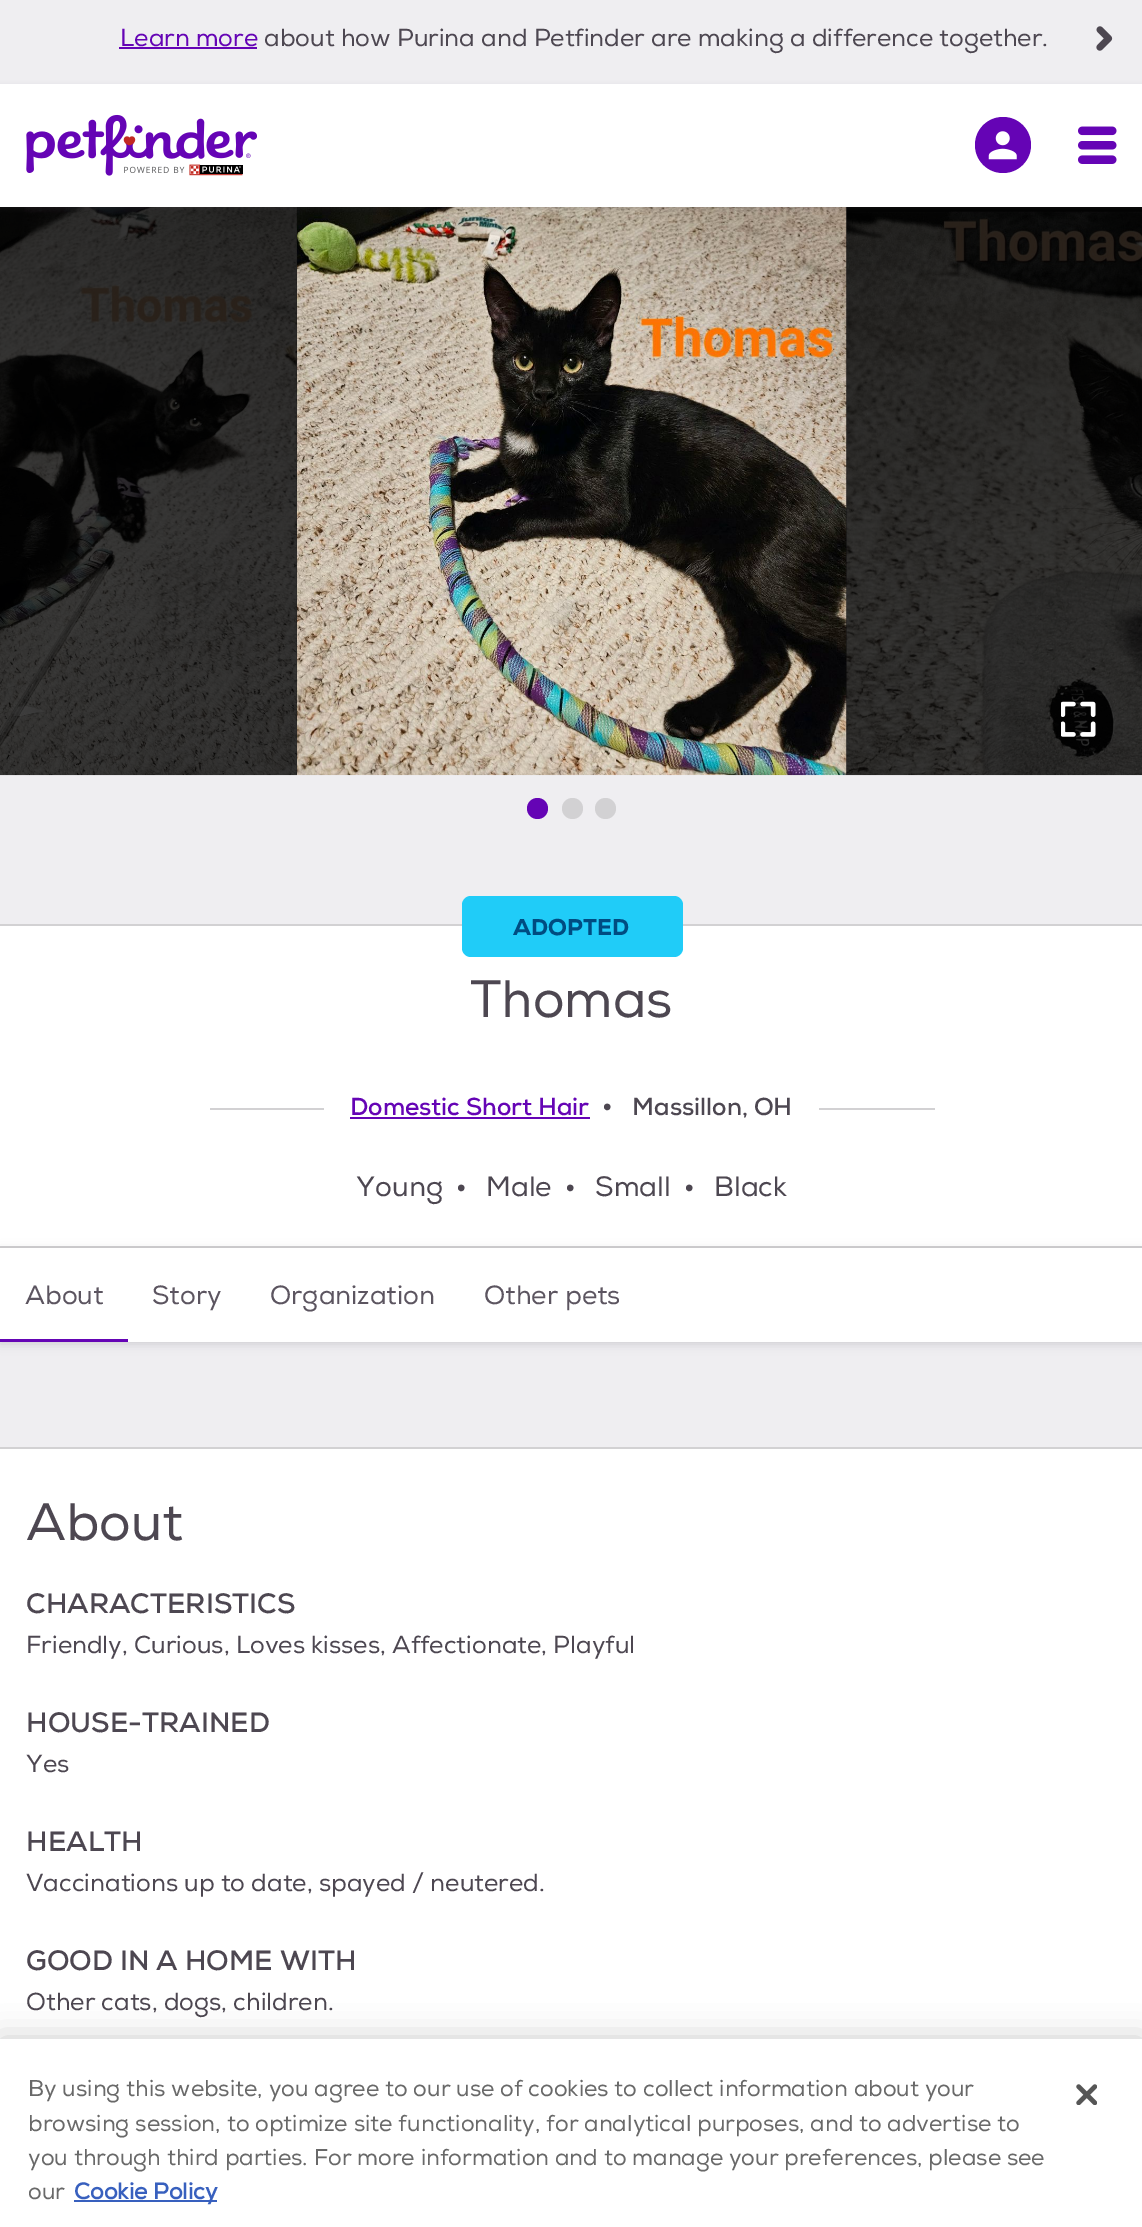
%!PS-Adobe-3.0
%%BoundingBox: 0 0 1142 2227
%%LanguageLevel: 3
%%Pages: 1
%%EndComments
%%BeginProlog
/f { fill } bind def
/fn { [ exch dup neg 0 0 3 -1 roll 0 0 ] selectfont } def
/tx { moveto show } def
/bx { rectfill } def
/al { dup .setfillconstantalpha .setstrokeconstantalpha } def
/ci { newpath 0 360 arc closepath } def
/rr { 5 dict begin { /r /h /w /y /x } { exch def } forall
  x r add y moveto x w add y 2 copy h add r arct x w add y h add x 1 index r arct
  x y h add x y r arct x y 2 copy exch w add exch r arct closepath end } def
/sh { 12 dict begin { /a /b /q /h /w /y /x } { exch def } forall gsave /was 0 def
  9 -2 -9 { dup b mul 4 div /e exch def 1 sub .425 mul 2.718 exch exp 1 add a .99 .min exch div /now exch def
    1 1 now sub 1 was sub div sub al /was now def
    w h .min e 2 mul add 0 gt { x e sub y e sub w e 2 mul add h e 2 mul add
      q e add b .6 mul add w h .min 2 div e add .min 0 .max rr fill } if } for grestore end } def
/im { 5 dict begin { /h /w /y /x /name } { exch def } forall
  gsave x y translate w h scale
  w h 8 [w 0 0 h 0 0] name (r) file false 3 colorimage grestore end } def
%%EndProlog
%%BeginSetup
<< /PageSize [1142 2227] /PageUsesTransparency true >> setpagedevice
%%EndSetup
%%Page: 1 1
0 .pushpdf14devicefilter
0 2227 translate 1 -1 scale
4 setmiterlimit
0.937 0.933 0.945 setrgbcolor
0 0 1142 2227 bx
/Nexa-Regular 24.5 fn
0.396 0.016 0.71 setrgbcolor
(Learn more) 120 46 tx
119 47 138 2 bx
0.302 0.278 0.318 setrgbcolor
(about how Purina and Petfinder are making a difference together.) 264 46 tx
(image0.raw) 1096 26 17 25 im
(image4.raw) 0 207 297 569 im
(image5.raw) 297 207 550 569 im
(image6.raw) 846 207 296 569 im
0 86 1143 122 0 2.5 0.2 sh
1 setgray
0 84 1142 123 bx
(image1.raw) 26 114 231 62 im
0.396 0.016 0.71 setrgbcolor
1003 145 28 ci f
(image2.raw) 988 131 29 29 im
(image3.raw) 1078 126 39 38 im
(image7.raw) 1061 701 35 36 im
537.5 808.5 10.5 ci f
0.824 0.82 0.827 setrgbcolor
572.5 808.5 10.5 ci f
605.5 808.5 10.5 ci f
1 setgray
0 926 1142 320 bx
0.824 0.82 0.827 setrgbcolor
0 924 1142 2 bx
0 1246 1142 2 bx
0.125 0.8 0.973 setrgbcolor
462 896 221 61 9 rr f
/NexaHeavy-Black 22.75 fn
0 0.298 0.506 setrgbcolor
(ADOPTED) 513 935 tx
/Nexa-Regular 52.5 fn
0.302 0.278 0.318 setrgbcolor
(Thomas) 470 1017 tx
0.824 0.82 0.827 setrgbcolor
210 1108 114 2 bx
/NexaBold-Bold 24.5 fn
0.396 0.016 0.71 setrgbcolor
(Domestic Short Hair) 350 1115 tx
350 1117 240 2 bx
/LiberationSans-Regular 24.5 fn
0.302 0.278 0.318 setrgbcolor
(•) 603 1115 tx
/NexaBold-Bold 24.5 fn
(Massillon, OH) 632 1115 tx
0.824 0.82 0.827 setrgbcolor
819 1108 116 2 bx
/Nexa-Regular 28 fn
0.302 0.278 0.318 setrgbcolor
(Young) 356 1196 tx
/LiberationSans-Regular 24.5 fn
(•) 457 1196 tx
/Nexa-Regular 28 fn
(Male) 486 1196 tx
/LiberationSans-Regular 24.5 fn
(•) 566 1196 tx
/Nexa-Regular 28 fn
(Small) 595 1196 tx
/LiberationSans-Regular 24.5 fn
(•) 685 1196 tx
/Nexa-Regular 28 fn
(Black) 714 1196 tx
0 1250 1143 94 0 5 0.2 sh
1 setgray
0 1248 1142 94 bx
/Nexa-Regular 26.25 fn
0.361 0.333 0.376 setrgbcolor
(About) 25 1304 tx
0.396 0.016 0.71 setrgbcolor
0 1339 128 3 bx
0.361 0.333 0.376 setrgbcolor
(Story) 152 1304 tx
(Organization) 270 1304 tx
(Other pets) 484 1304 tx
1 setgray
0 1449 1142 590 bx
0.824 0.82 0.827 setrgbcolor
0 1447 1142 2 bx
/Nexa-Regular 52.5 fn
0.302 0.278 0.318 setrgbcolor
(About) 26 1540 tx
/NexaBold-Bold 28 fn
(CHARACTERISTICS) 26 1613 tx
/Nexa-Regular 24.5 fn
(Friendly, Curious, Loves kisses, Affectionate, Playful) 26 1653 tx
/NexaBold-Bold 28 fn
(HOUSE-TRAINED) 26 1732 tx
/Nexa-Regular 24.5 fn
(Yes) 26 1772 tx
/NexaBold-Bold 28 fn
(HEALTH) 26 1851 tx
/Nexa-Regular 24.5 fn
(Vaccinations up to date, spayed / neutered.) 26 1891 tx
/NexaBold-Bold 28 fn
(GOOD IN A HOME WITH) 26 1970 tx
/Nexa-Regular 24.5 fn
(Other cats, dogs, children.) 26 2010 tx
0 setgray
0 2039 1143 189 0 16 0.2 sh
1 setgray
0 2039 1142 188 bx
/Nexa-Regular 22.75 fn
0.412 setgray
(By using this website, you agree to our use of cookies to collect information about your) 28 2096 tx
(browsing session, to optimize site functionality, for analytical purposes, and to advertise to) 28 2131 tx
(you through third parties. For more information and to manage your preferences, please see) 28 2165 tx
(our) 28 2199 tx
0.22 0.376 0.745 setrgbcolor
74 2200 143 2 bx
/Nexa-Bold 22.75 fn
(Cookie Policy) 74 2199 tx
(image8.raw) 1076 2084 21 21 im
.poppdf14devicefilter showpage
%%EOF
